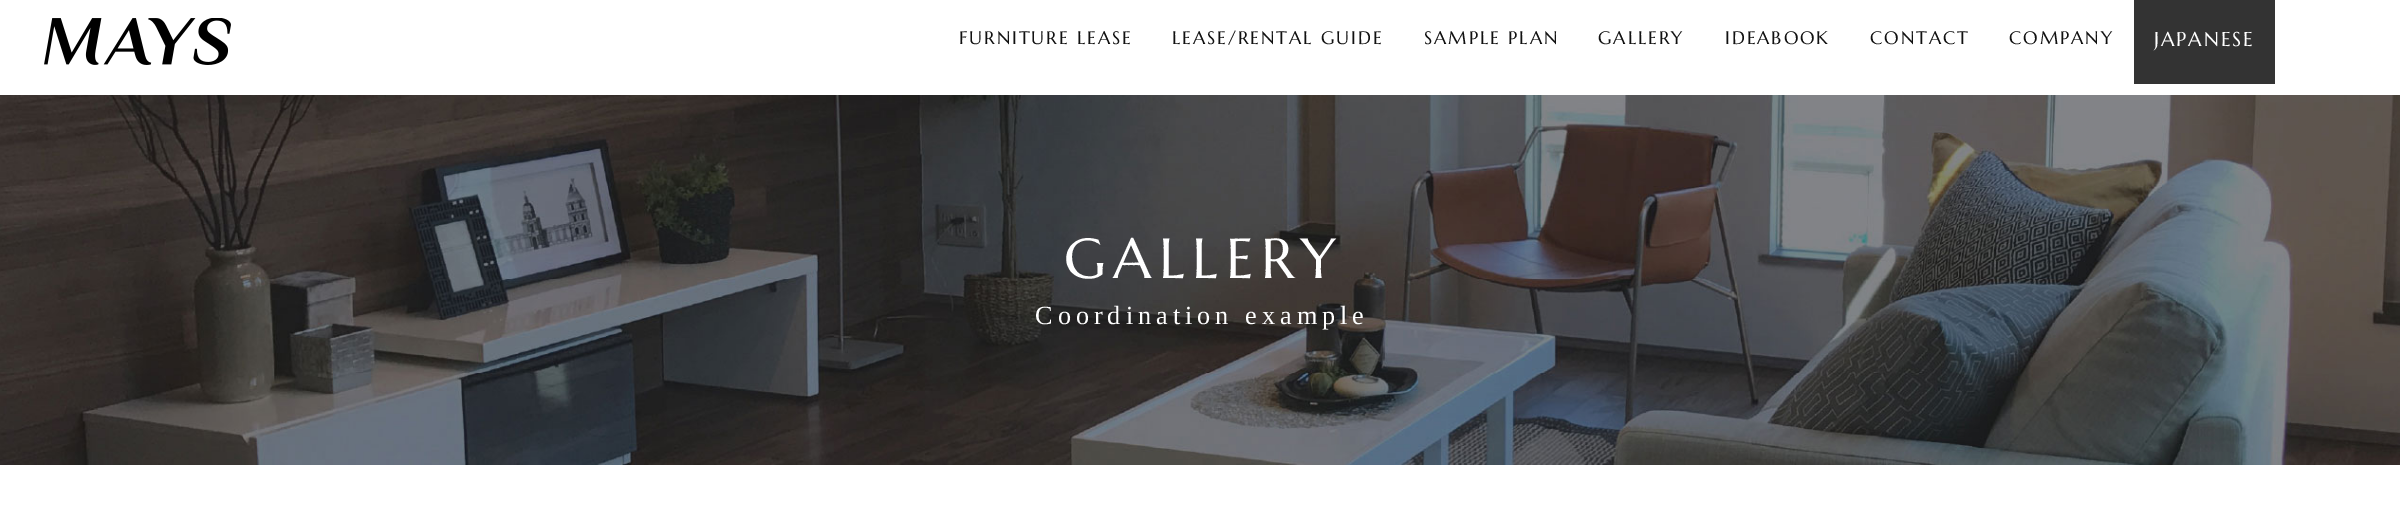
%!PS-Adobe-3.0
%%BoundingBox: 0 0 2400 523
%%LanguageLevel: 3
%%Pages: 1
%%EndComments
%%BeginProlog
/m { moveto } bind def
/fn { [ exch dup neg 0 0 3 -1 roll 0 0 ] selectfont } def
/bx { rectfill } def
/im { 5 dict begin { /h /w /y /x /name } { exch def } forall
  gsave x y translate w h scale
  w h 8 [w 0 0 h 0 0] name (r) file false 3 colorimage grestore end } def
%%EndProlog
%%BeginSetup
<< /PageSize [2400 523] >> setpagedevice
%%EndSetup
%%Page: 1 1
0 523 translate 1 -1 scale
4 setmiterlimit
1 setgray
0 0 2400 523 bx
(image0.raw) 44 18 187 47 im
/Marcellus-Regular 18.1 fn
0.067 setgray
959 44 m 1.9 0 (FURNITURE LEASE) ashow
1172 44 m 1.9 0 (LEASE/RENTAL GUIDE) ashow
1424 44 m 1.9 0 (SAMPLE PLAN) ashow
1598 44 m 1.9 0 (GALLERY) ashow
1725 44 m 1.9 0 (IDEABOOK) ashow
1870 44 m 1.9 0 (CONTACT) ashow
2009 44 m 1.9 0 (COMPANY) ashow
0.2 setgray
2134 0 141 84 bx
/Marcellus-Regular 20 fn
1 setgray
2154 46 m 1.9 0 (JAPANESE) ashow
(image1.raw) 0 95 2400 370 im
/Marcellus-Regular 56.25 fn
1064 278 m 7.5 0 (GALLERY) ashow
/LiberationSerif-Regular 26.25 fn
1035 324 m 5 0 (Coordination example) ashow
showpage
%%EOF
